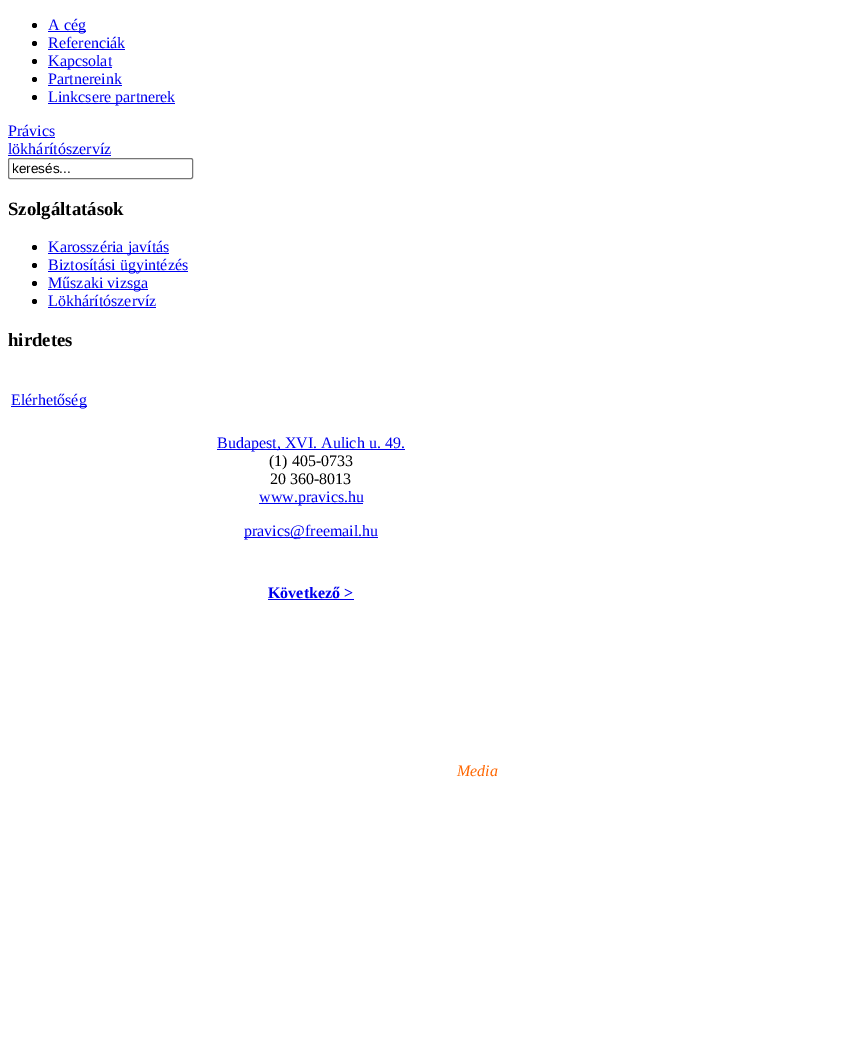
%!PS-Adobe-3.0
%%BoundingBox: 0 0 851 1038
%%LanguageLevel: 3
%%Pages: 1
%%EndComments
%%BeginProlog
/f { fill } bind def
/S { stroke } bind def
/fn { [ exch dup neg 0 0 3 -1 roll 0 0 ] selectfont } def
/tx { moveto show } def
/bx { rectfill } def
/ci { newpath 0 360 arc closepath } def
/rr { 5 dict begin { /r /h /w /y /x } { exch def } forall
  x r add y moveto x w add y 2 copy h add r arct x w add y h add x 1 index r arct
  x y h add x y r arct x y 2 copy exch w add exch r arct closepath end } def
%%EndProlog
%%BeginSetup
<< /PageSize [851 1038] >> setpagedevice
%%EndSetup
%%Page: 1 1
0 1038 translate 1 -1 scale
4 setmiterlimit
1 setgray
0 0 851 1038 bx
0 setgray
34.5 25.5 2.5 ci f
0 0 0.933 setrgbcolor
48 31 38 1 bx
/LiberationSerif-Regular 16 fn
(A cég) 48 30 tx
0 setgray
34.5 43.5 2.5 ci f
0 0 0.933 setrgbcolor
(Referenciák) 48 48 tx
48 49 77 1 bx
0 setgray
34.5 61.5 2.5 ci f
0 0 0.933 setrgbcolor
48 67 64 1 bx
(Kapcsolat) 48 66 tx
0 setgray
34.5 79.5 2.5 ci f
0 0 0.933 setrgbcolor
(Partnereink) 48 84 tx
48 85 74 1 bx
0 setgray
34.5 97.5 2.5 ci f
0 0 0.933 setrgbcolor
48 103 127 1 bx
(Linkcsere partnerek) 48 102 tx
(Právics) 8 136 tx
8 137 47 1 bx
(lökhárítószervíz) 8 154 tx
8 155 103 1 bx
0.463 setgray
8.5 158.5 184 20 1.5 rr S
/LiberationSans-Regular 13.5 fn
0 setgray
(keresés...) 12 173 tx
/LiberationSerif-Bold 18.75 fn
(Szolgáltatások) 8 215 tx
34.5 247.5 2.5 ci f
0 0 0.933 setrgbcolor
48 253 121 1 bx
/LiberationSerif-Regular 16 fn
(Karosszéria javítás) 48 252 tx
0 setgray
34.5 265.5 2.5 ci f
0 0 0.933 setrgbcolor
48 271 140 1 bx
(Biztosítási ügyintézés) 48 270 tx
0 setgray
34.5 283.5 2.5 ci f
0 0 0.933 setrgbcolor
48 289 100 1 bx
(Műszaki vizsga) 48 288 tx
0 setgray
34.5 301.5 2.5 ci f
0 0 0.933 setrgbcolor
(Lökhárítószervíz) 48 306 tx
48 307 108 1 bx
/LiberationSerif-Bold 18.75 fn
0 setgray
(hirdetes) 8 346 tx
0 0 0.933 setrgbcolor
11 406 76 1 bx
/LiberationSerif-Regular 16 fn
(Elérhetőség) 11 405 tx
217 449 188 1 bx
(Budapest, XVI. Aulich u. 49.) 217 448 tx
0 setgray
(\(1\) 405-0733) 269 466 tx
(20 360-8013) 270 484 tx
0 0 0.933 setrgbcolor
259 503 104 1 bx
(www.pravics.hu) 259 502 tx
244 537 134 1 bx
(pravics@freemail.hu) 244 536 tx
/LiberationSerif-Bold 16 fn
(Következő >) 268 598 tx
268 599 86 1 bx
/LiberationSerif-Italic 16 fn
1 0.4 0 setrgbcolor
(Media) 457 776 tx
showpage
%%EOF
